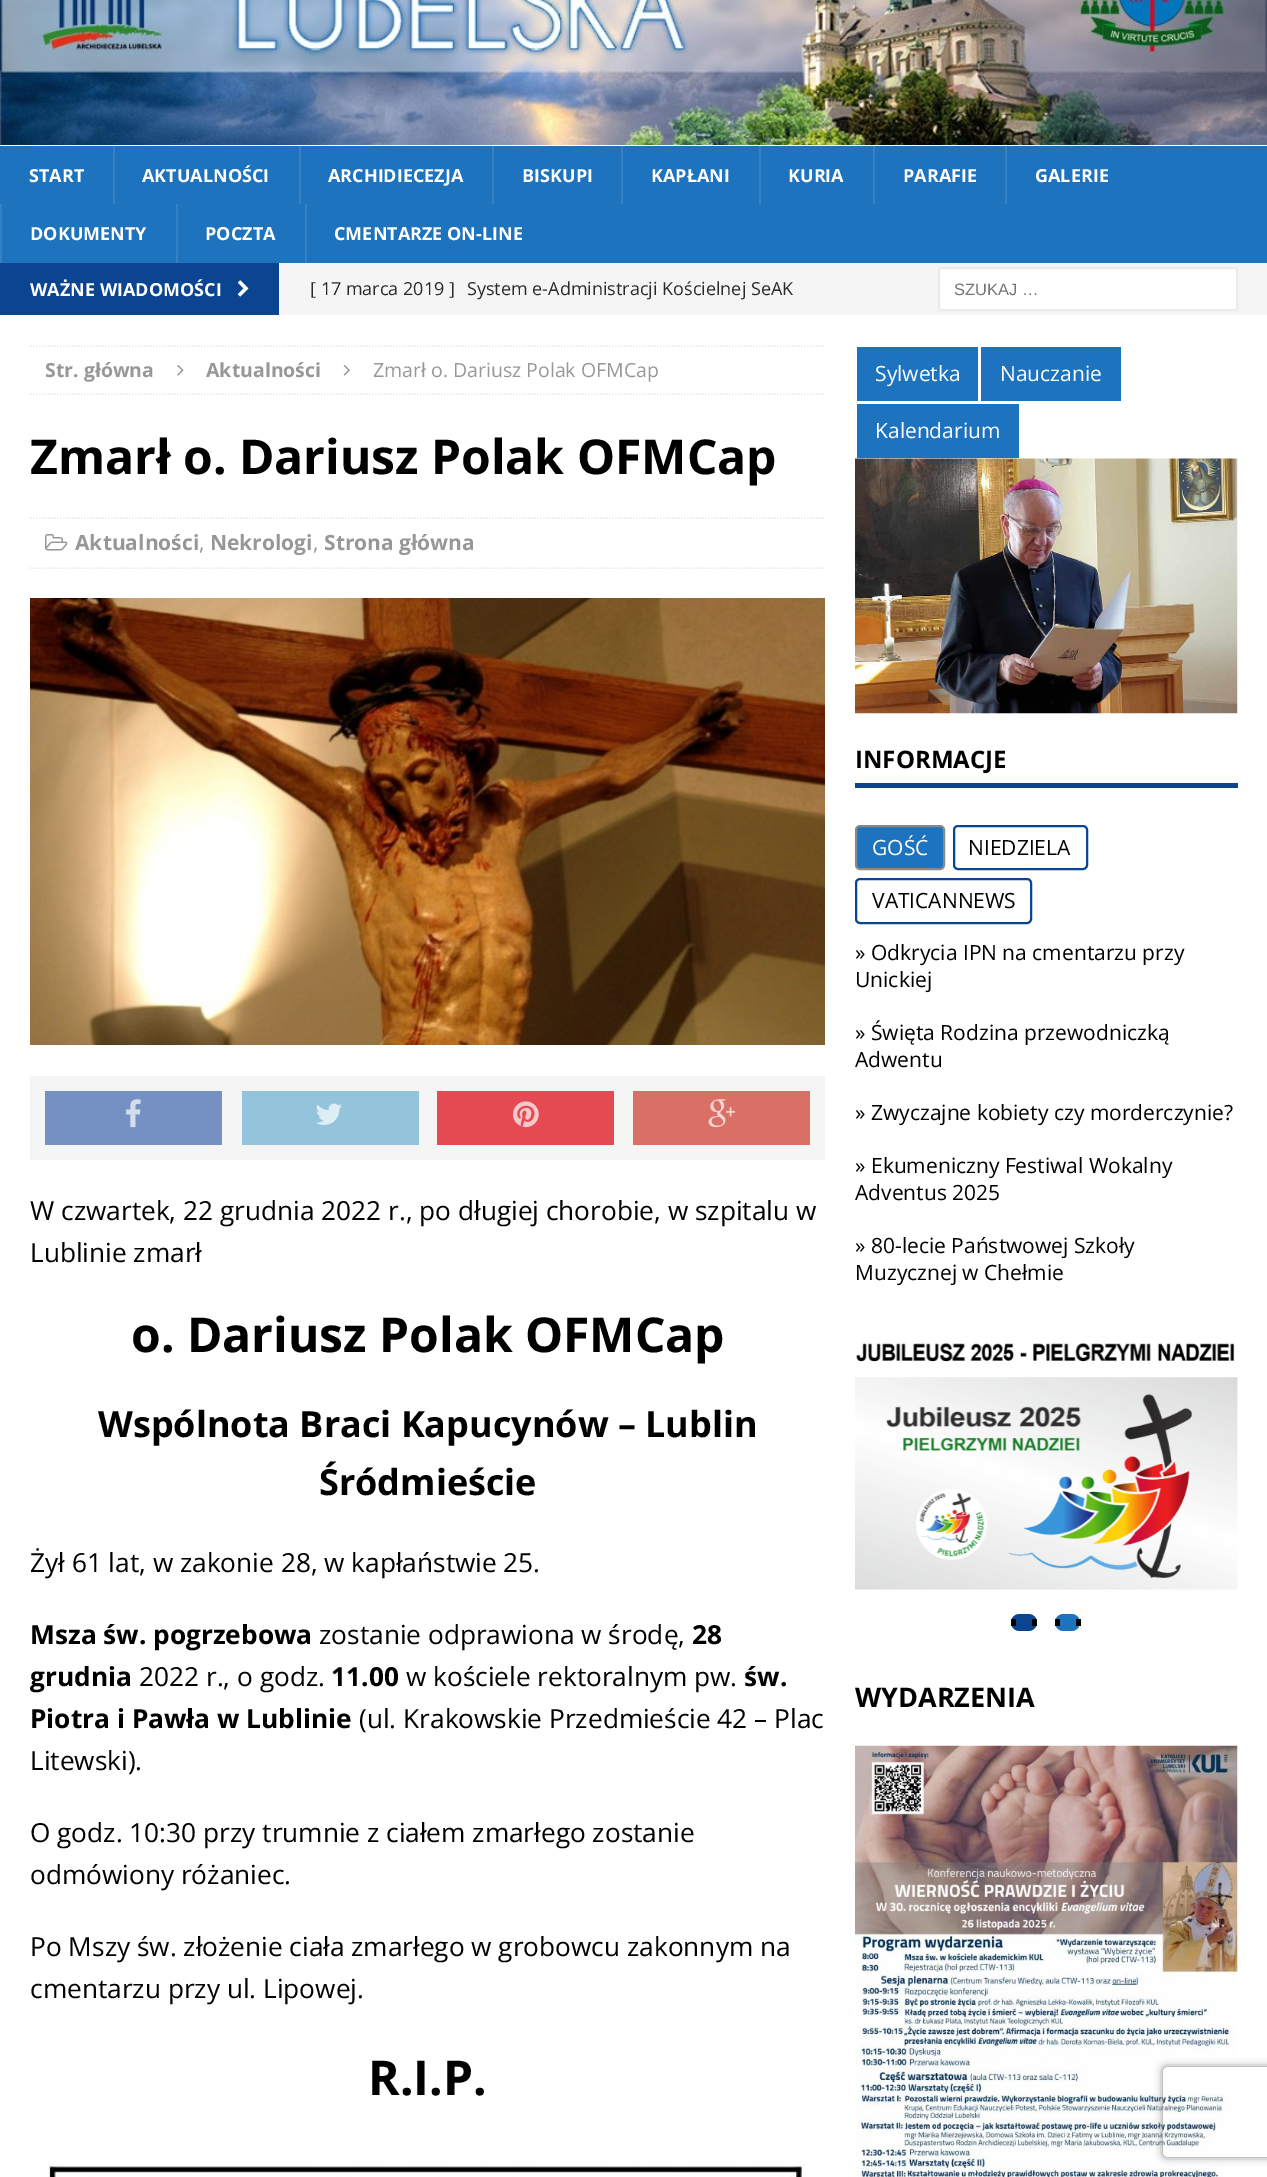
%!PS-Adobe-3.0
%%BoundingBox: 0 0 1267 2177
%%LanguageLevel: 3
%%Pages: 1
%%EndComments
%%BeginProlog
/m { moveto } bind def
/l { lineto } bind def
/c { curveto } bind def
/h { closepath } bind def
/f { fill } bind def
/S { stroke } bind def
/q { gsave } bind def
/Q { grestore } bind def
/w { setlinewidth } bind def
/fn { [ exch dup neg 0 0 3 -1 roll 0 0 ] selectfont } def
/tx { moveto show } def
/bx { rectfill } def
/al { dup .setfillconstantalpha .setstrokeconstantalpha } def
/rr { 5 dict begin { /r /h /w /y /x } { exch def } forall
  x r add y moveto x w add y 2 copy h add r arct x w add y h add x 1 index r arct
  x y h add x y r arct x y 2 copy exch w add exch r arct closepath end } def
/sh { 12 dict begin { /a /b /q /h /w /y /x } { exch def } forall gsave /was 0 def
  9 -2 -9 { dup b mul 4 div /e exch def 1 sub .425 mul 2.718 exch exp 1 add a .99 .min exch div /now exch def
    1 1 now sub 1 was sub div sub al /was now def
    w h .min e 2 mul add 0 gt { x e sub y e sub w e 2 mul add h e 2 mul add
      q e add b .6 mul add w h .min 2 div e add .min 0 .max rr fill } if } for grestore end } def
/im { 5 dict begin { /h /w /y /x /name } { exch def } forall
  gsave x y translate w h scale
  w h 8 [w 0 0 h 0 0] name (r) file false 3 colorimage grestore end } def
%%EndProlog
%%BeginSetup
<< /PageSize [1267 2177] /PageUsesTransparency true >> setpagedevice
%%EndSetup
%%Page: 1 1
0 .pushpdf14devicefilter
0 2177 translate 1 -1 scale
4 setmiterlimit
1 setgray
0 0 1267 2177 bx
(image0.raw) 0 0 1267 145 im
0.118 0.451 0.745 setrgbcolor
0 146 1267 117 bx
/OpenSans-Bold 18 fn
1 setgray
(START) 29 182 tx
0.208 0.506 0.773 setrgbcolor
113 146 2 58 bx
1 setgray
(AKTUALNOŚCI) 142 182 tx
0.208 0.506 0.773 setrgbcolor
299 146 2 58 bx
1 setgray
(ARCHIDIECEZJA) 328 182 tx
0.208 0.506 0.773 setrgbcolor
492 146 2 58 bx
1 setgray
(BISKUPI) 522 182 tx
0.208 0.506 0.773 setrgbcolor
621 146 2 58 bx
1 setgray
(KAPŁANI) 651 182 tx
0.208 0.506 0.773 setrgbcolor
759 146 2 58 bx
1 setgray
(KURIA) 788 182 tx
0.208 0.506 0.773 setrgbcolor
873 146 2 58 bx
1 setgray
(PARAFIE) 903 182 tx
0.208 0.506 0.773 setrgbcolor
1005 146 2 58 bx
1 setgray
(GALERIE) 1035 182 tx
0.208 0.506 0.773 setrgbcolor
0 204 2 59 bx
1 setgray
(DOKUMENTY) 30 240 tx
0.208 0.506 0.773 setrgbcolor
176 204 2 59 bx
1 setgray
(POCZTA) 205 240 tx
0.208 0.506 0.773 setrgbcolor
305 204 2 59 bx
1 setgray
(CMENTARZE ON-LINE) 334 240 tx
0.961 setgray
279 263 988 52 bx
0.043 0.271 0.569 setrgbcolor
0 263 279 52 bx
1 setgray
(WAŻNE WIADOMOŚCI) 30 296 tx
(image1.raw) 237 280 12 17 im
/OpenSans-Regular 18 fn
0.165 setgray
([ 17 marca 2019 ]) 310 295 tx
(System e-Administracji Kościelnej SeAK) 467 295 tx
1 setgray
939 268 m 1237 268 l 1237 310 l 939 310 l h q f Q
0.922 setgray
2 w
S
/LiberationSans-Regular 16.5 fn
0.459 setgray
(SZUKAJ …) 954 295 tx
0.922 setgray
1.5 w
[1.5 1.5] 0 setdash
30 346 m 825 346 l S
30 394 m 825 394 l S
/OpenSans-Bold 19.5 fn
0.592 setgray
(Str. główna) 45 377 tx
(image2.raw) 177 364 7 12 im
(Aktualności) 206 377 tx
(image3.raw) 343 364 7 12 im
/OpenSans-Regular 19.5 fn
(Zmarł o. Dariusz Polak OFMCap) 373 377 tx
/OpenSans-Bold 48 fn
0 setgray
(Zmarł o. Dariusz Polak OFMCap) 30 474 tx
0.922 setgray
30 518 m 825 518 l S
30 568 m 825 568 l S
(image4.raw) 45 534 23 17 im
/OpenSans-Bold 21 fn
0.592 setgray
(Aktualności) 75 550 tx
/OpenSans-Regular 21 fn
(,) 199 550 tx
/OpenSans-Bold 21 fn
(Nekrologi) 210 550 tx
/OpenSans-Regular 21 fn
(,) 313 550 tx
/OpenSans-Bold 21 fn
(Strona główna) 324 550 tx
(image5.raw) 30 598 795 447 im
0.961 setgray
30 1076 795 84 bx
0.459 0.565 0.765 setrgbcolor
45 1091 177 54 bx
(image6.raw) 126 1099 15 29 im
0.58 0.765 0.863 setrgbcolor
242 1091 177 54 bx
(image7.raw) 316 1103 26 22 im
0.898 0.29 0.325 setrgbcolor
437 1091 177 54 bx
(image8.raw) 513 1101 26 27 im
0.851 0.435 0.396 setrgbcolor
633 1091 177 54 bx
(image9.raw) 708 1099 27 29 im
/OpenSans-Regular 26.25 fn
0 setgray
(W czwartek, 22 grudnia 2022 r., po długiej chorobie, w szpitalu w) 30 1220 tx
(Lublinie zmarł) 30 1262 tx
/OpenSans-Bold 48 fn
(o. Dariusz Polak OFMCap) 131 1352 tx
/OpenSans-Bold 36 fn
(Wspólnota Braci Kapucynów – Lublin) 98 1437 tx
(Śródmieście) 319 1495 tx
/OpenSans-Regular 26.25 fn
(Żył 61 lat, w zakonie 28, w kapłaństwie 25.) 30 1572 tx
/OpenSans-Bold 26.25 fn
(Msza św. pogrzebowa) 30 1644 tx
/OpenSans-Regular 26.25 fn
(zostanie odprawiona w środę,) 319 1644 tx
/OpenSans-Bold 26.25 fn
(28) 692 1644 tx
(grudnia) 30 1686 tx
/OpenSans-Regular 26.25 fn
(2022 r., o godz.) 139 1686 tx
/OpenSans-Bold 26.25 fn
(11.00) 331 1686 tx
/OpenSans-Regular 26.25 fn
(w kościele rektoralnym pw.) 406 1686 tx
/OpenSans-Bold 26.25 fn
(św.) 744 1686 tx
(Piotra i Pawła w Lublinie) 30 1728 tx
/OpenSans-Regular 26.25 fn
(\(ul. Krakowskie Przedmieście 42 – Plac) 359 1728 tx
(Litewski\).) 30 1770 tx
(O godz. 10:30 przy trumnie z ciałem zmarłego zostanie) 30 1842 tx
(odmówiony różaniec.) 30 1884 tx
(Po Mszy św. złożenie ciała zmarłego w grobowcu zakonnym na) 30 1956 tx
(cmentarzu przy ul. Lipowej.) 30 1998 tx
/OpenSans-Bold 48 fn
(R.I.P.) 368 2095 tx
(image10.raw) 48 2162 758 15 im
0.118 0.451 0.745 setrgbcolor
857 347 121 54 bx
/OpenSans-Regular 21 fn
1 setgray
(Sylwetka) 875 381 tx
0.118 0.451 0.745 setrgbcolor
981 347 140 54 bx
1 setgray
(Nauczanie) 1000 381 tx
0.118 0.451 0.745 setrgbcolor
857 404 162 54 bx
1 setgray
(Kalendarium) 875 438 tx
(image11.raw) 855 458 383 256 im
0.043 0.271 0.569 setrgbcolor
855 783 383 5 bx
/OpenSans-Bold 24 fn
0 setgray
(INFORMACJE) 855 768 tx
0.118 0.451 0.745 setrgbcolor
856 826 88 43 4 rr q f Q
0.533 setgray
2 w
[] 0 setdash
S
/OpenSans-Regular 21 fn
1 setgray
(GOŚĆ) 872 855 tx
0.043 0.271 0.569 setrgbcolor
954 826 133 43 4 rr S
0 setgray
(NIEDZIELA) 968 855 tx
0.043 0.271 0.569 setrgbcolor
856 879 175 44 4 rr S
0 setgray
(VATICANNEWS) 872 908 tx
(» Odkrycia IPN na cmentarzu przy) 855 960 tx
(Unickiej) 855 987 tx
(» Święta Rodzina przewodniczką) 855 1040 tx
(Adwentu) 855 1067 tx
(» Zwyczajne kobiety czy morderczynie?) 855 1120 tx
(» Ekumeniczny Festiwal Wokalny) 855 1173 tx
(Adventus 2025) 855 1200 tx
(» 80-lecie Państwowej Szkoły) 855 1253 tx
(Muzycznej w Chełmie) 855 1280 tx
(image12.raw) 855 1343 383 247 im
0.043 0.271 0.569 setrgbcolor
1011 1614 26 17 8.5 rr f
0 setgray
1032 1619 5 7 bx
1011 1619 5 7 bx
0.118 0.451 0.745 setrgbcolor
1055 1614 25 17 8.5 rr f
0 setgray
1076 1619 5 7 bx
1055 1619 5 7 bx
/OpenSans-Bold 27 fn
(WYDARZENIA) 855 1707 tx
(image13.raw) 855 1745 383 432 im
q
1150 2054 m 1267 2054 l 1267 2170 l 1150 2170 l h 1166 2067 m 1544 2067 l 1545.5 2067 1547 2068.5 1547 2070 c 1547 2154 l 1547 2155.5 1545.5 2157 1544 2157 c 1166 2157 l 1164.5 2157 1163 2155.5 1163 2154 c 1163 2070 l 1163 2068.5 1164.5 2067 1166 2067 c h eoclip newpath
0.502 setgray
1163 2067 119 90 3 4 1 sh
Q
.poppdf14devicefilter showpage
%%EOF
